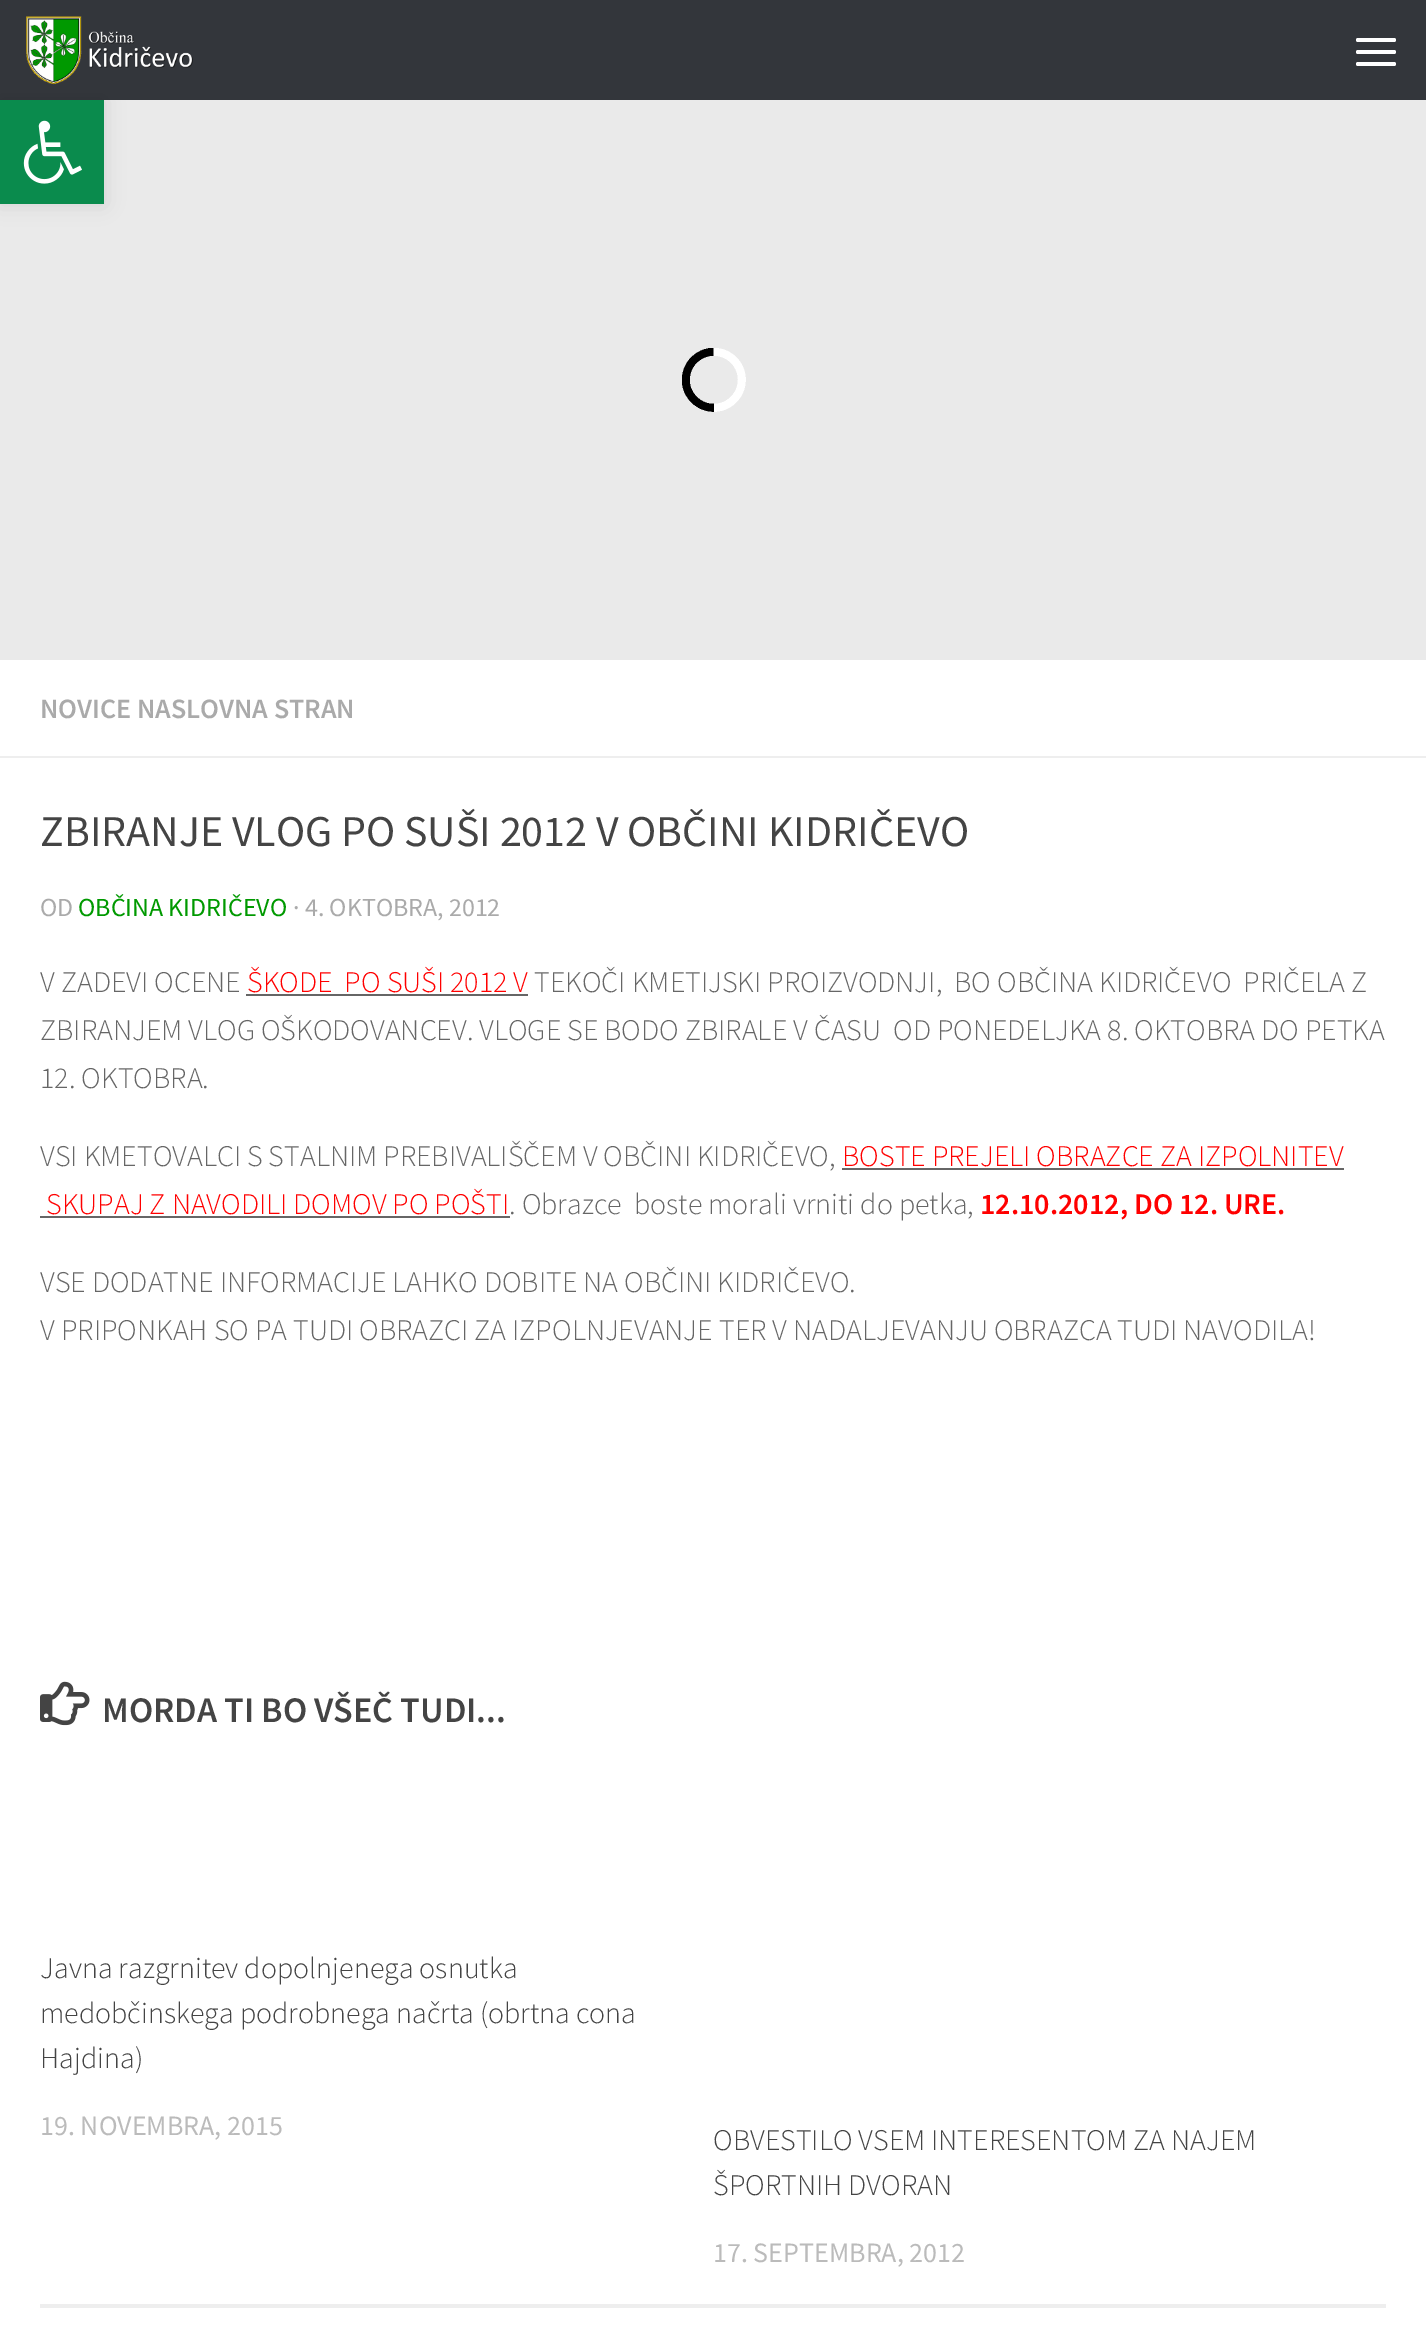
%!PS-Adobe-3.0
%%BoundingBox: 0 0 1426 2339
%%LanguageLevel: 3
%%Pages: 1
%%EndComments
%%BeginProlog
/f { fill } bind def
/fn { [ exch dup neg 0 0 3 -1 roll 0 0 ] selectfont } def
/tx { moveto show } def
/bx { rectfill } def
/al { dup .setfillconstantalpha .setstrokeconstantalpha } def
/rr { 5 dict begin { /r /h /w /y /x } { exch def } forall
  x r add y moveto x w add y 2 copy h add r arct x w add y h add x 1 index r arct
  x y h add x y r arct x y 2 copy exch w add exch r arct closepath end } def
/sh { 12 dict begin { /a /b /q /h /w /y /x } { exch def } forall gsave /was 0 def
  9 -2 -9 { dup b mul 4 div /e exch def 1 sub .425 mul 2.718 exch exp 1 add a .99 .min exch div /now exch def
    1 1 now sub 1 was sub div sub al /was now def
    w h .min e 2 mul add 0 gt { x e sub y e sub w e 2 mul add h e 2 mul add
      q e add b .6 mul add w h .min 2 div e add .min 0 .max rr fill } if } for grestore end } def
/im { 5 dict begin { /h /w /y /x /name } { exch def } forall
  gsave x y translate w h scale
  w h 8 [w 0 0 h 0 0] name (r) file false 3 colorimage grestore end } def
%%EndProlog
%%BeginSetup
<< /PageSize [1426 2339] /PageUsesTransparency true >> setpagedevice
%%EndSetup
%%Page: 1 1
0 .pushpdf14devicefilter
0 2339 translate 1 -1 scale
4 setmiterlimit
0.918 setgray
0 0 1426 2339 bx
0.2 0.212 0.231 setrgbcolor
0 0 1426 100 bx
(image1.raw) 26 16 167 69 im
0 setgray
0 100 104 104 0 10 0.1 sh
0.039 0.545 0.302 setrgbcolor
0 100 104 104 bx
(image0.raw) 23 120 59 64 im
1 setgray
1356 38 40 4 2 rr f
1356 50 40 4 2 rr f
1356 62 40 4 2 rr f
(image2.raw) 682 348 64 64 im
0 660 1426 1679 bx
0.933 setgray
0 756 1426 2 bx
/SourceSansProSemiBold-SemiBold 28 fn
0.667 setgray
(NOVICE NASLOVNA STRAN) 40 718 tx
/SourceSansPro-Regular 44 fn
0.267 setgray
(ZBIRANJE VLOG PO SUŠI 2012 V OBČINI KIDRIČEVO) 40 846 tx
/SourceSansPro-Regular 26 fn
0.667 setgray
(OD) 40 916 tx
0 0.6 0 setrgbcolor
(OBČINA KIDRIČEVO) 78 916 tx
0.667 setgray
(· 4. OKTOBRA, 2012) 293 916 tx
/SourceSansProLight-Light 30 fn
0.4 setgray
(V ZADEVI OCENE) 40 992 tx
1 0 0 setrgbcolor
(ŠKODE  PO SUŠI 2012 V) 247 992 tx
0.4 setgray
246 994 282 2 bx
(TEKOČI KMETIJSKI PROIZVODNJI,  BO OBČINA KIDRIČEVO  PRIČELA Z) 534 992 tx
(ZBIRANJEM VLOG OŠKODOVANCEV. VLOGE SE BODO ZBIRALE V ČASU  OD PONEDELJKA 8. OKTOBRA DO PETKA) 40 1040 tx
(12. OKTOBRA.) 40 1088 tx
(VSI KMETOVALCI S STALNIM PREBIVALIŠČEM V OBČINI KIDRIČEVO,) 40 1166 tx
1 0 0 setrgbcolor
(BOSTE PREJELI OBRAZCE ZA IZPOLNITEV) 842 1166 tx
0.4 setgray
842 1168 502 2 bx
1 0 0 setrgbcolor
(SKUPAJ Z NAVODILI DOMOV PO POŠTI) 46 1214 tx
0.4 setgray
40 1216 470 2 bx
(. Obrazce  boste morali vrniti do petka,) 509 1214 tx
/SourceSansProSemiBold-SemiBold 30 fn
1 0 0 setrgbcolor
(12.10.2012, DO 12. URE.) 980 1214 tx
/SourceSansProLight-Light 30 fn
0.4 setgray
(VSE DODATNE INFORMACIJE LAHKO DOBITE NA OBČINI KIDRIČEVO.) 40 1292 tx
(V PRIPONKAH SO PA TUDI OBRAZCI ZA IZPOLNJEVANJE TER V NADALJEVANJU OBRAZCA TUDI NAVODILA!) 40 1340 tx
(image3.raw) 40 1681 50 45 im
/SourceSansProSemiBold-SemiBold 36 fn
0.267 setgray
(MORDA TI BO VŠEČ TUDI...) 102 1722 tx
0.933 setgray
40 2304 1346 4 bx
/SourceSansProLight-Light 30 fn
0.267 setgray
(Javna razgrnitev dopolnjenega osnutka) 40 1978 tx
(medobčinskega podrobnega načrta \(obrtna cona) 40 2023 tx
(Hajdina\)) 40 2068 tx
/SourceSansPro-Regular 28 fn
0.733 setgray
(19. NOVEMBRA, 2015) 40 2135 tx
/SourceSansProLight-Light 30 fn
0.267 setgray
(OBVESTILO VSEM INTERESENTOM ZA NAJEM) 713 2150 tx
(ŠPORTNIH DVORAN) 713 2195 tx
/SourceSansPro-Regular 28 fn
0.733 setgray
(17. SEPTEMBRA, 2012) 713 2262 tx
.poppdf14devicefilter showpage
%%EOF
